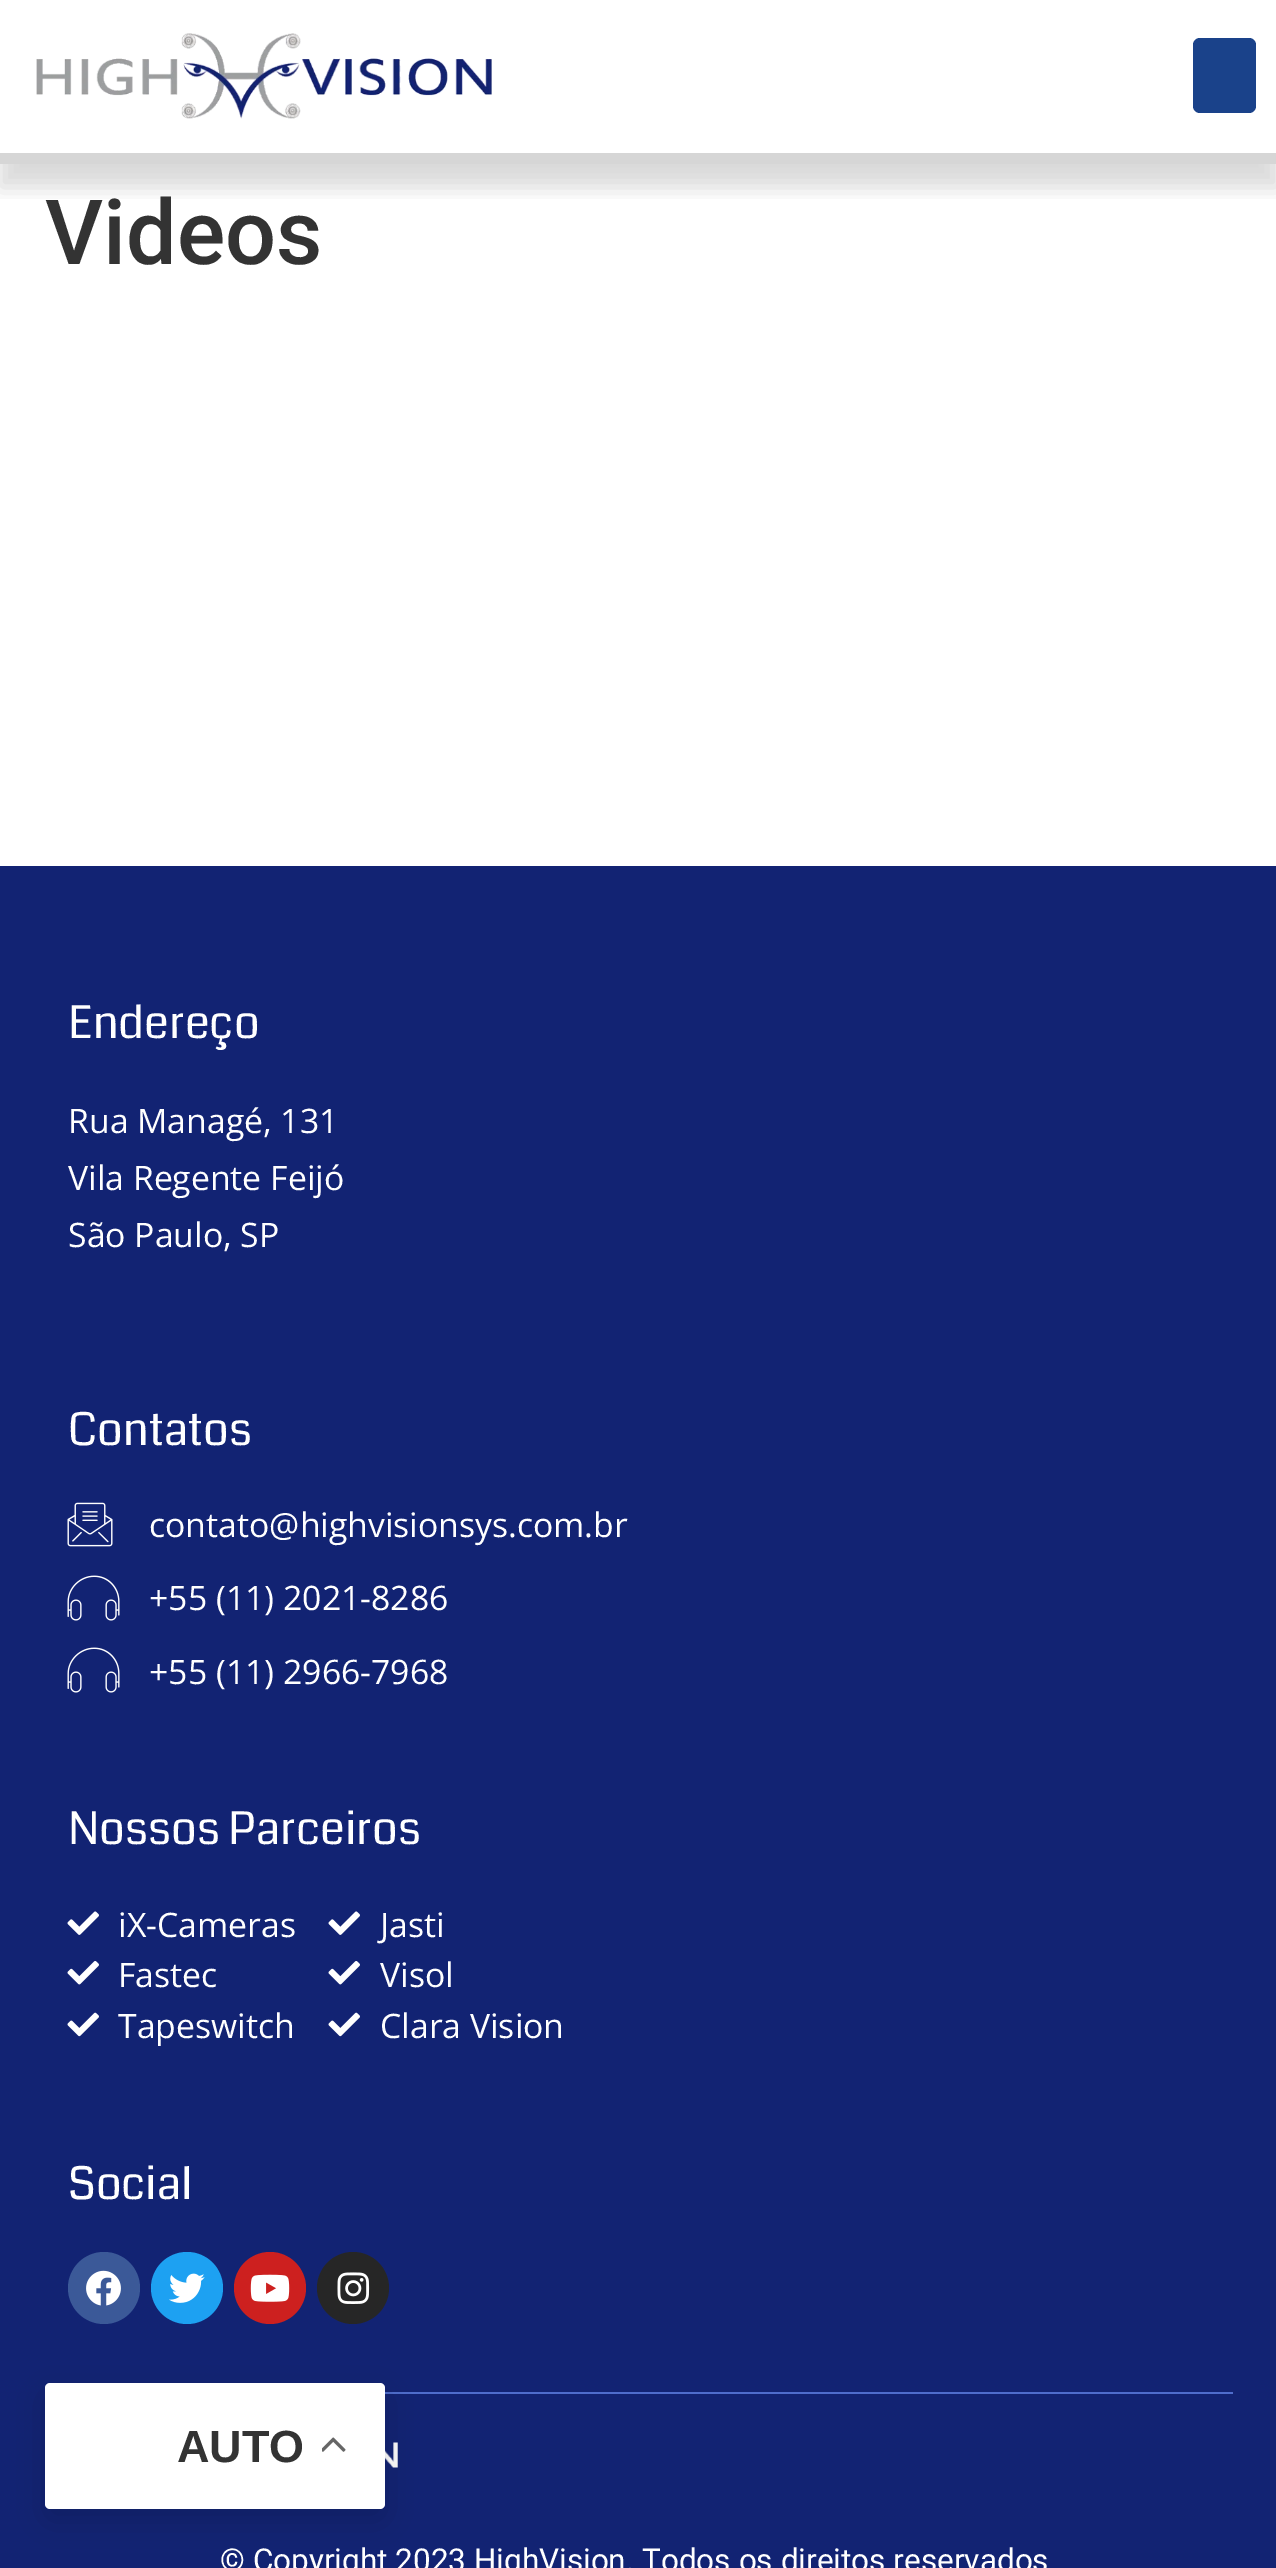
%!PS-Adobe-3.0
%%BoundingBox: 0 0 1276 2568
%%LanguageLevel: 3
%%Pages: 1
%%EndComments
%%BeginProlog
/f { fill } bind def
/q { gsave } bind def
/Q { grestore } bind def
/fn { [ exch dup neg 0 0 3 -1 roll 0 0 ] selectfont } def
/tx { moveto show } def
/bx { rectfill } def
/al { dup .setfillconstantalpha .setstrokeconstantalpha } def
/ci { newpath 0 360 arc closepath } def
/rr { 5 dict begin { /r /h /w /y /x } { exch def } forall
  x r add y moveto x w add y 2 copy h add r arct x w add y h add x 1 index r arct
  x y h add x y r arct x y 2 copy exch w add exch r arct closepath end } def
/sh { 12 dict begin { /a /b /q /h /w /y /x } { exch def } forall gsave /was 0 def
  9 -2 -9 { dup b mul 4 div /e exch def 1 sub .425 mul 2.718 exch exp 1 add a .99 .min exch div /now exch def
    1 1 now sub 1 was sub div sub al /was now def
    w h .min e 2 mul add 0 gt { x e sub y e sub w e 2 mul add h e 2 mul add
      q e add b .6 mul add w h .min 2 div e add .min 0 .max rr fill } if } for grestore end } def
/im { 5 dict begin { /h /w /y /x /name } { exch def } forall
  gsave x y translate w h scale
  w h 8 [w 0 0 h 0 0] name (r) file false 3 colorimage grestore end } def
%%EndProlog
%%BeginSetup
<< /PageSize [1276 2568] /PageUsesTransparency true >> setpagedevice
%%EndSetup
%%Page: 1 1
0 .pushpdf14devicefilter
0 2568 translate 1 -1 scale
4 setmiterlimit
1 setgray
0 0 1276 2568 bx
q
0 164 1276 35 rectclip
0 setgray
0 23 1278 164 0 11 0.15 sh
Q
0.839 setgray
0 153 1276 11 bx
(image0.raw) 36 33 456 86 im
0.102 0.259 0.541 setrgbcolor
1193 38 63 75 7 rr f
/Roboto-Medium 90 fn
0.2 setgray
(Videos) 45 264 tx
0.071 0.137 0.451 setrgbcolor
0 866 1276 1702 bx
/Coda-Regular 45 fn
1 setgray
(Endereço) 68 1038 tx
/OpenSans-Regular 33.75 fn
(Rua Managé, 131) 68 1133 tx
(Vila Regente Feijó) 68 1190 tx
(São Paulo, SP) 68 1247 tx
/Coda-Regular 45 fn
(Contatos) 68 1445 tx
(image1.raw) 67 1502 46 45 im
/OpenSans-Regular 33.75 fn
(contato@highvisionsys.com.br) 149 1537 tx
(image2.raw) 67 1575 53 46 im
(+55 \(11\) 2021-8286) 149 1610 tx
(image2.raw) 67 1647 53 46 im
(+55 \(11\) 2966-7968) 149 1684 tx
/Coda-Regular 45 fn
(Nossos Parceiros) 68 1844 tx
(image3.raw) 67 1911 32 24 im
/OpenSans-Regular 33.75 fn
(iX-Cameras) 118 1937 tx
(image4.raw) 67 1961 32 24 im
(Fastec) 118 1987 tx
(image5.raw) 67 2012 32 25 im
(Tapeswitch) 118 2038 tx
(image3.raw) 328 1911 32 24 im
(Jasti) 380 1937 tx
(image4.raw) 328 1961 32 24 im
(Visol) 380 1987 tx
(image5.raw) 328 2012 32 25 im
(Clara Vision) 380 2038 tx
/Coda-Regular 45 fn
(Social) 68 2199 tx
0.231 0.349 0.596 setrgbcolor
104 2288 36 ci f
(image6.raw) 86 2270 35 36 im
0.114 0.631 0.949 setrgbcolor
187 2288 36 ci f
(image7.raw) 169 2273 36 30 im
0.804 0.125 0.122 setrgbcolor
270 2288 36 ci f
(image8.raw) 250 2274 40 28 im
0.149 setgray
353 2288 36 ci f
(image9.raw) 337 2272 33 32 im
0.31 0.427 0.8 setrgbcolor
385 2392 848 2 bx
(image10.raw) 385 2442 13 26 im
/Roboto-Regular 31.5 fn
1 setgray
(© Copyright 2023 HighVision. Todos os direitos reservados) 220 2571 tx
0 setgray
45 2394 340 126 5 17 0.15 sh
1 setgray
45 2383 340 126 5 rr f
/LiberationSans-Bold 45 fn
0.2 setgray
(AUTO) 177 2462 tx
(image11.raw) 322 2437 24 15 im
.poppdf14devicefilter showpage
%%EOF
